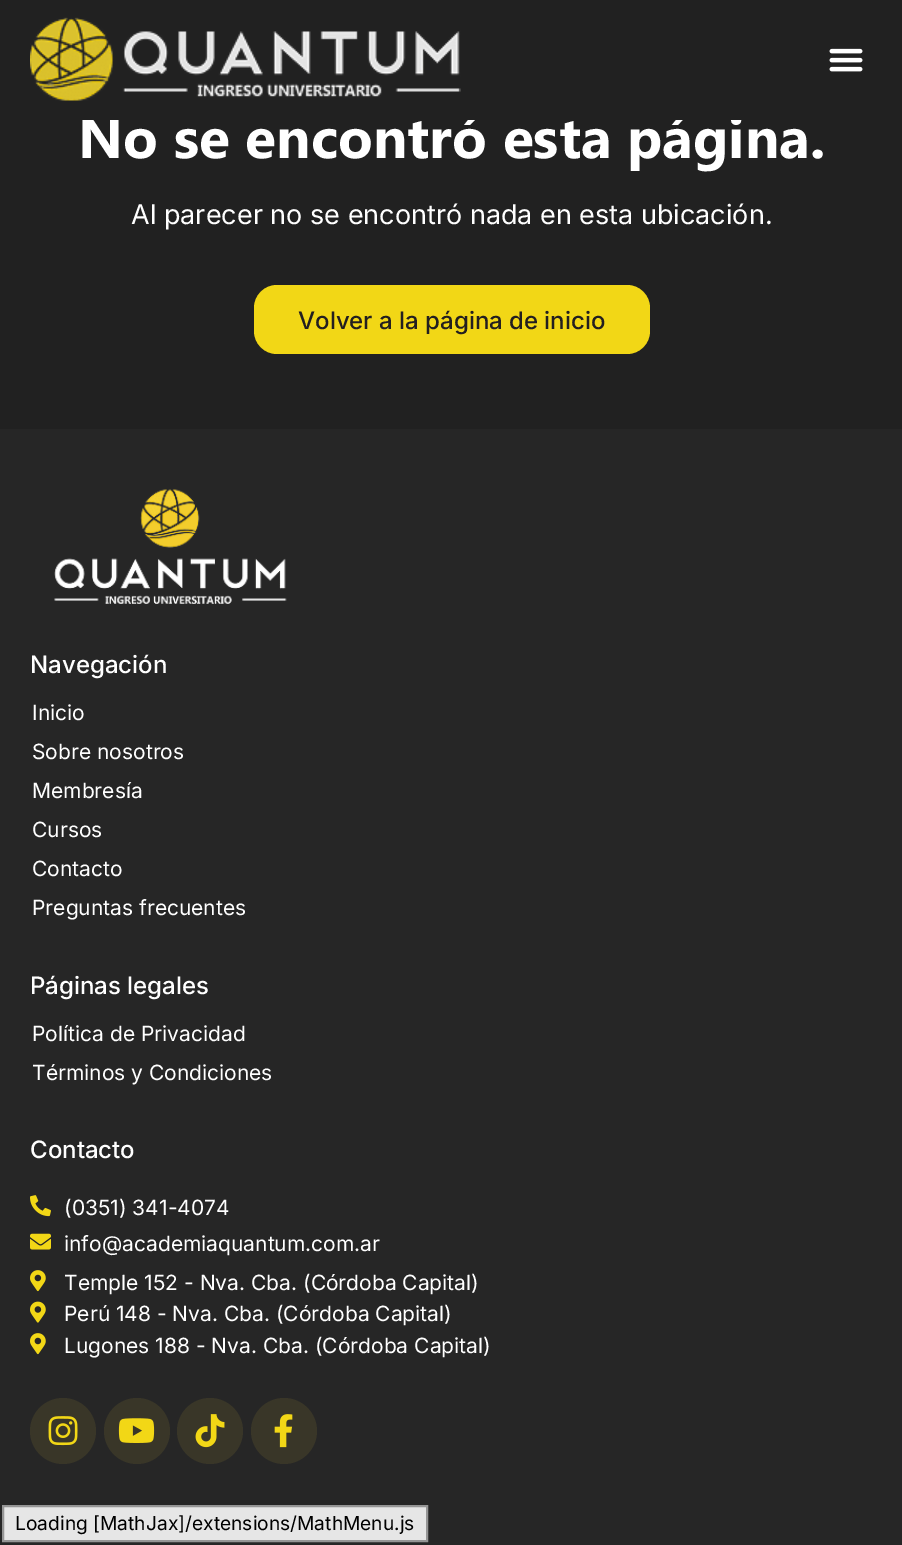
%!PS-Adobe-3.0
%%BoundingBox: 0 0 902 1545
%%LanguageLevel: 3
%%Pages: 1
%%EndComments
%%BeginProlog
/m { moveto } bind def
/l { lineto } bind def
/h { closepath } bind def
/f { fill } bind def
/S { stroke } bind def
/q { gsave } bind def
/Q { grestore } bind def
/w { setlinewidth } bind def
/fn { [ exch dup neg 0 0 3 -1 roll 0 0 ] selectfont } def
/tx { moveto show } def
/bx { rectfill } def
/ci { newpath 0 360 arc closepath } def
/rr { 5 dict begin { /r /h /w /y /x } { exch def } forall
  x r add y moveto x w add y 2 copy h add r arct x w add y h add x 1 index r arct
  x y h add x y r arct x y 2 copy exch w add exch r arct closepath end } def
/im { 5 dict begin { /h /w /y /x /name } { exch def } forall
  gsave x y translate w h scale
  w h 8 [w 0 0 h 0 0] name (r) file false 3 colorimage grestore end } def
%%EndProlog
%%BeginSetup
<< /PageSize [902 1545] >> setpagedevice
%%EndSetup
%%Page: 1 1
0 1545 translate 1 -1 scale
4 setmiterlimit
0.129 setgray
0 0 902 1545 bx
/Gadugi-Bold 57 fn
1 setgray
(No se encontró esta página.) 78 158 tx
0.129 setgray
82 115 660 5 bx
(image0.raw) 30 17 431 84 im
(image1.raw) 829 48 34 24 im
/Inter-Regular 27 fn
1 setgray
(Al parecer no se encontró nada en esta ubicación.) 131 224 tx
0.949 0.843 0.086 setrgbcolor
254 285 396 69 23 rr f
/Inter-Medium 24 fn
0.137 0.122 0.125 setrgbcolor
(Volver a la página de inicio) 298 329 tx
0.149 setgray
0 429 902 1116 bx
(image2.raw) 54 489 233 115 im
1 setgray
(Navegación) 30 673 tx
/Inter-Regular 21 fn
(Inicio) 32 720 tx
(Sobre nosotros) 32 759 tx
(Membresía) 32 798 tx
(Cursos) 32 837 tx
(Contacto) 32 876 tx
(Preguntas frecuentes) 32 915 tx
/Inter-Medium 24 fn
(Páginas legales) 30 994 tx
/Inter-Regular 21 fn
(Política de Privacidad) 32 1041 tx
(Términos y Condiciones) 32 1080 tx
/Inter-Medium 24 fn
(Contacto) 30 1158 tx
(image3.raw) 30 1195 21 22 im
/Inter-Regular 21 fn
(\(0351\) 341-4074) 64 1215 tx
(image4.raw) 30 1233 21 17 im
(info@academiaquantum.com.ar) 64 1251 tx
(image5.raw) 30 1270 16 22 im
(Temple 152 - Nva. Cba. \(Córdoba Capital\)) 64 1290 tx
(image6.raw) 30 1301 16 22 im
(Perú 148 - Nva. Cba. \(Córdoba Capital\)) 64 1321 tx
(image5.raw) 30 1333 16 22 im
(Lugones 188 - Nva. Cba. \(Córdoba Capital\)) 64 1353 tx
0.224 0.212 0.157 setrgbcolor
63 1431 33 ci f
(image7.raw) 48 1416 30 30 im
137 1431 33 ci f
(image8.raw) 118 1418 37 25 im
210 1431 33 ci f
(image9.raw) 195 1414 30 34 im
284 1431 33 ci f
(image10.raw) 274 1414 19 34 im
0.902 setgray
3 1506 m 427 1506 l 427 1541 l 3 1541 l h q f Q
0.584 setgray
2 w
S
/Inter-Regular 19.2 fn
0 setgray
(Loading [MathJax]/extensions/MathMenu.js) 15 1530 tx
showpage
%%EOF
